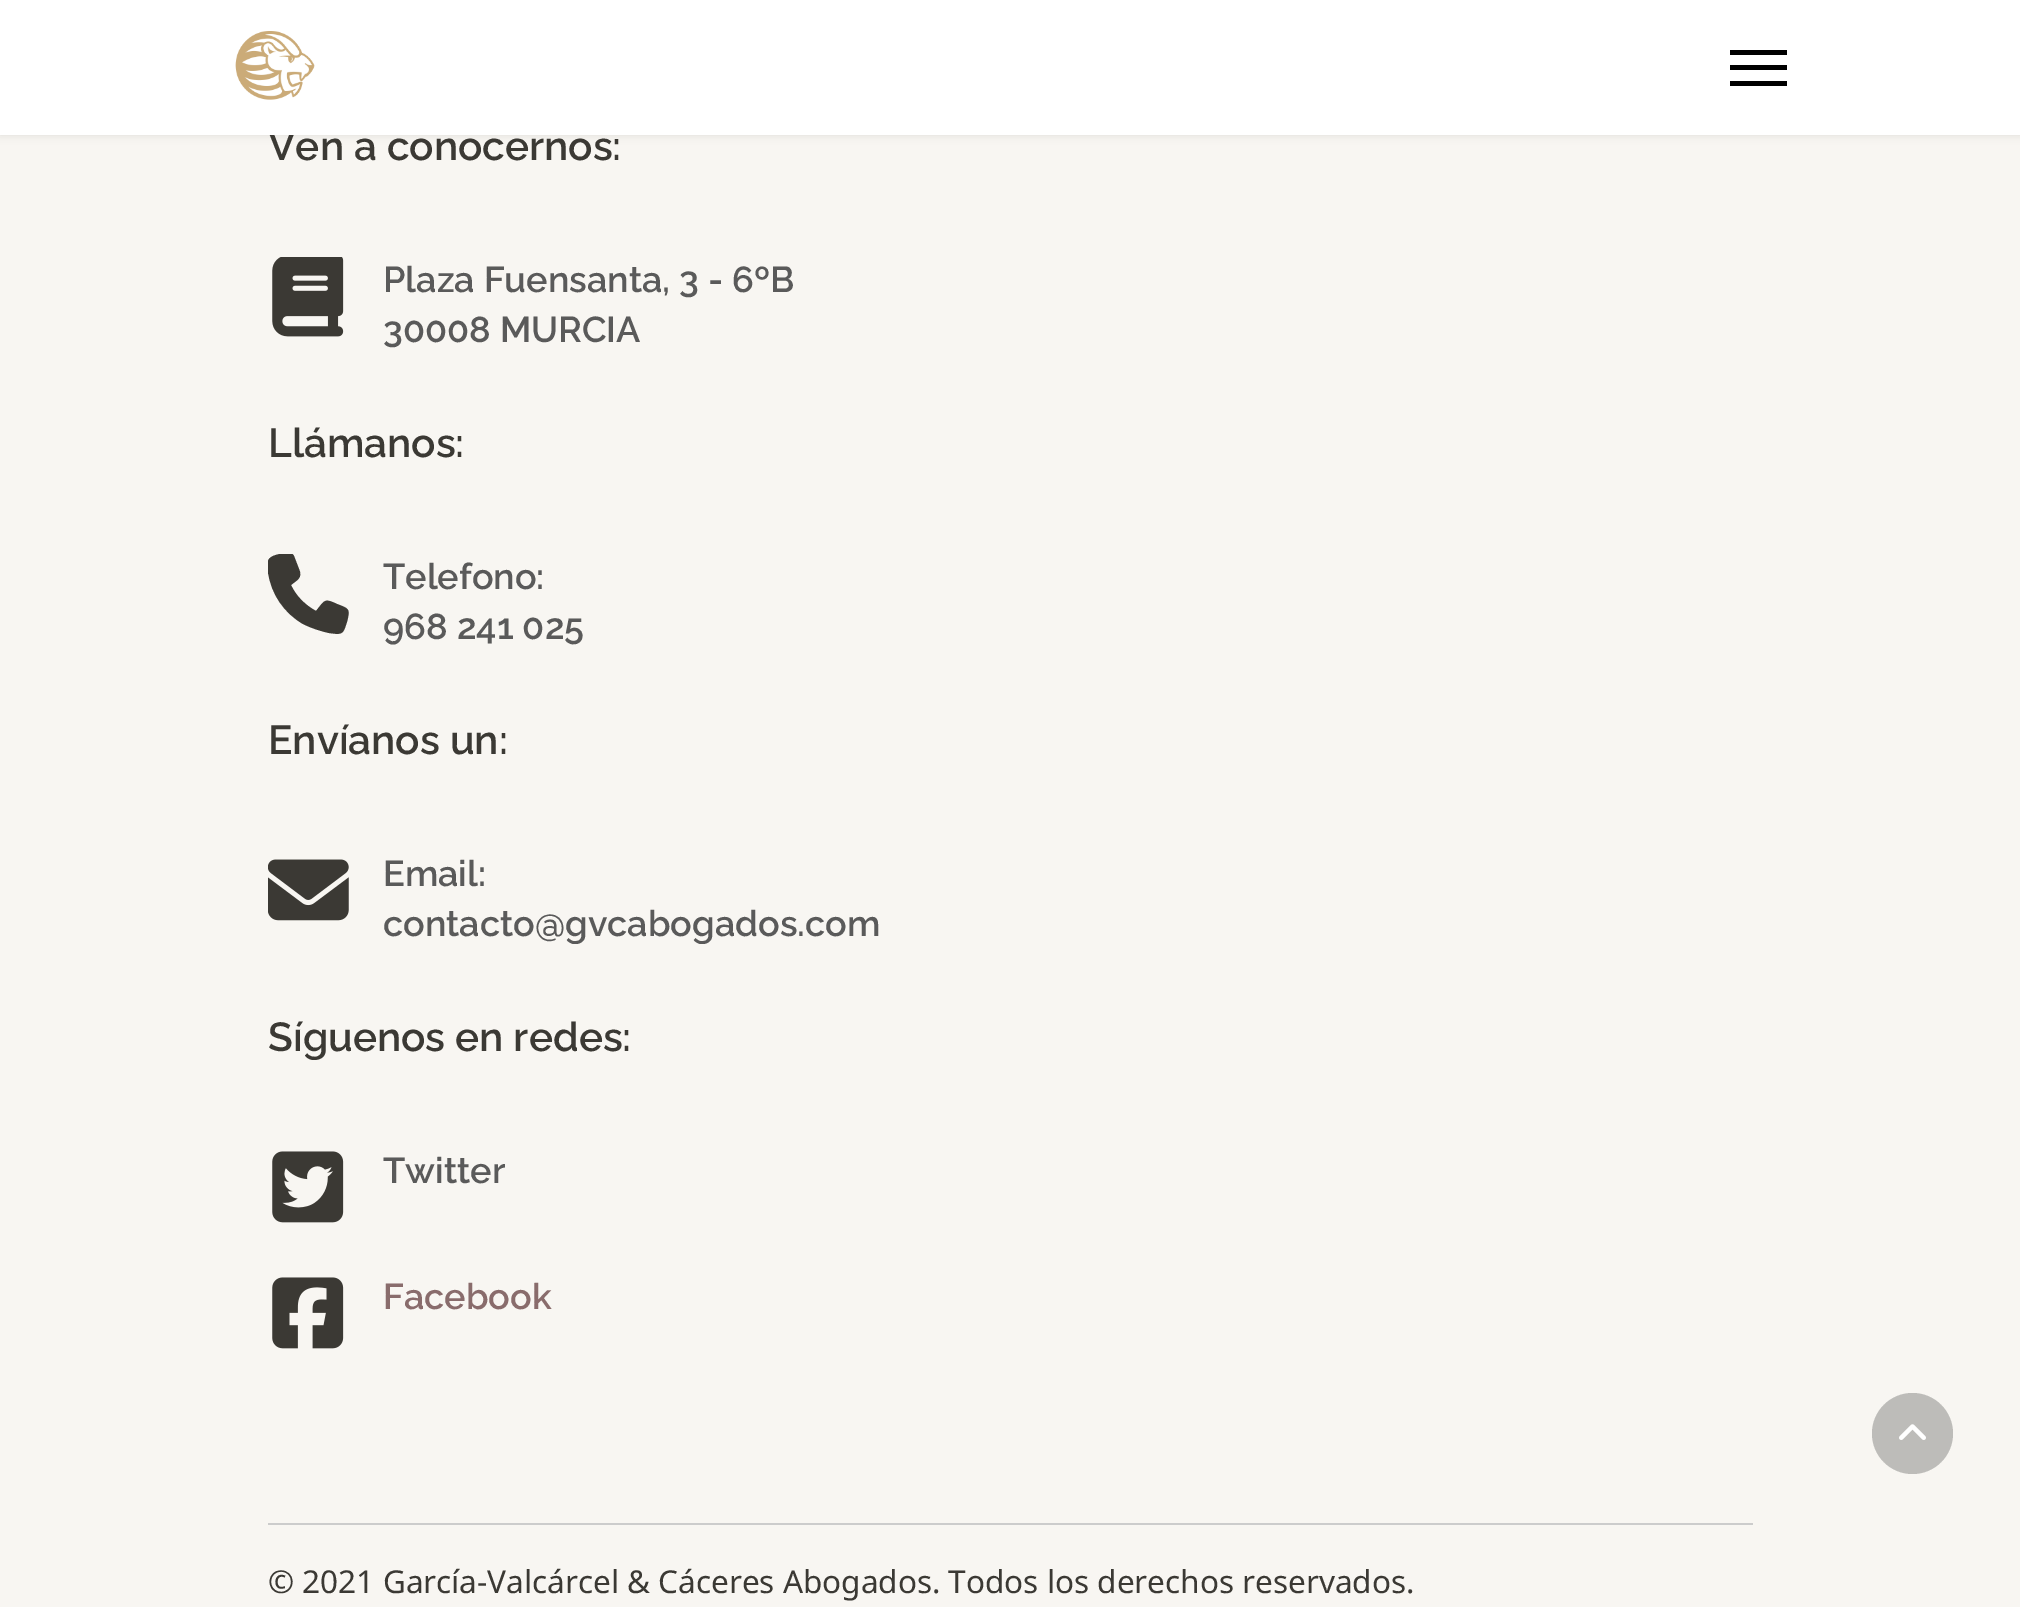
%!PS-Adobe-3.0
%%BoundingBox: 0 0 2020 1607
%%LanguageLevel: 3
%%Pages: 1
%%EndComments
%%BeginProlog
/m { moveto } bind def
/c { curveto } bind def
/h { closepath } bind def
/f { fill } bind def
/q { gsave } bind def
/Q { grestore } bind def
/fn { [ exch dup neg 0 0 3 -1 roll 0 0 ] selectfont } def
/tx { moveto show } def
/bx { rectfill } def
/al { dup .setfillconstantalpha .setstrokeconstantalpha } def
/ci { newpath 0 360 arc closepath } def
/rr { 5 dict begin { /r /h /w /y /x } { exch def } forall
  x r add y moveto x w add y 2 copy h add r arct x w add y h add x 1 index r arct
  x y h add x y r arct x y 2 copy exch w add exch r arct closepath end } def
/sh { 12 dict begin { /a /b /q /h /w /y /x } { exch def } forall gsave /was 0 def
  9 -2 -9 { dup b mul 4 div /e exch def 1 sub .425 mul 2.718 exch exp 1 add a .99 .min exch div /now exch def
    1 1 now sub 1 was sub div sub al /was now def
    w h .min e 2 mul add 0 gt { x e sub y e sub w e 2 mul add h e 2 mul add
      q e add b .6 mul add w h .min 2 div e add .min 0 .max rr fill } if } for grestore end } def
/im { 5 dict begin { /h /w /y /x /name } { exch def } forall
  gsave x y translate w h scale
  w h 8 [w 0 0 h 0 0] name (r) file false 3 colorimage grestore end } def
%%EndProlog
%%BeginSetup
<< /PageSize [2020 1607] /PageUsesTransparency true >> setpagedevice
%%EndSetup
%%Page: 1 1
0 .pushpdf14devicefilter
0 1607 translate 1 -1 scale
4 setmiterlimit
0.973 0.965 0.949 setrgbcolor
0 0 2020 1607 bx
0 setgray
0 0 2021 135 0 4.5 0.1 sh
/Raleway-SemiBold 40.5 fn
0.231 0.224 0.204 setrgbcolor
(Ven a conocernos:) 268 160 tx
1 setgray
0 0 2020 135 bx
(image0.raw) 235 31 80 69 im
0 setgray
1730 50 57 5 bx
1730 65 57 5 bx
1730 81 57 5 bx
(image1.raw) 272 257 72 80 im
/Raleway-SemiBold 36 fn
0.353 setgray
(Plaza Fuensanta, 3 - 6ºB) 383 292 tx
(30008 MURCIA) 383 342 tx
/Raleway-SemiBold 40.5 fn
0.231 0.224 0.204 setrgbcolor
(Llámanos:) 268 457 tx
q
268 554 1485 110 rectclip
294 556 m 292 552 288 552 284 553 c 280 554 273 555 270 558 c 266 561 268 568 268 572 c 271 594 284 613 303 624 c 311 628 320 631 329 633 c 343 635 343 634 347 622 c 350 609 350 609 337 604 c 324 598 325 600 316 611 c 305 605 296 596 291 585 c 297 580 303 578 299 569 c h f
Q
/Raleway-SemiBold 36 fn
0.353 setgray
(Telefono:) 383 589 tx
(968 241 025) 383 639 tx
/Raleway-SemiBold 40.5 fn
0.231 0.224 0.204 setrgbcolor
(Envíanos un:) 268 754 tx
(image2.raw) 268 859 81 62 im
/Raleway-SemiBold 36 fn
0.353 setgray
(Email:) 383 886 tx
(contacto@gvcabogados.com) 383 936 tx
/Raleway-SemiBold 40.5 fn
0.231 0.224 0.204 setrgbcolor
(Síguenos en redes:) 268 1051 tx
(image3.raw) 272 1151 72 72 im
/Raleway-SemiBold 36 fn
0.353 setgray
(Twitter) 383 1183 tx
(image4.raw) 272 1277 72 72 im
0.537 0.424 0.424 setrgbcolor
(Facebook) 383 1309 tx
0.8 setgray
268 1523 1485 2 bx
/NotoSans-Regular 31.5 fn
0.231 0.224 0.204 setrgbcolor
(© 2021 García-Valcárcel & Cáceres Abogados. Todos los derechos reservados.) 268 1593 tx
0.741 0.737 0.725 setrgbcolor
1912.5 1433.5 40.5 ci f
(image5.raw) 1899 1424 27 16 im
.poppdf14devicefilter showpage
%%EOF
